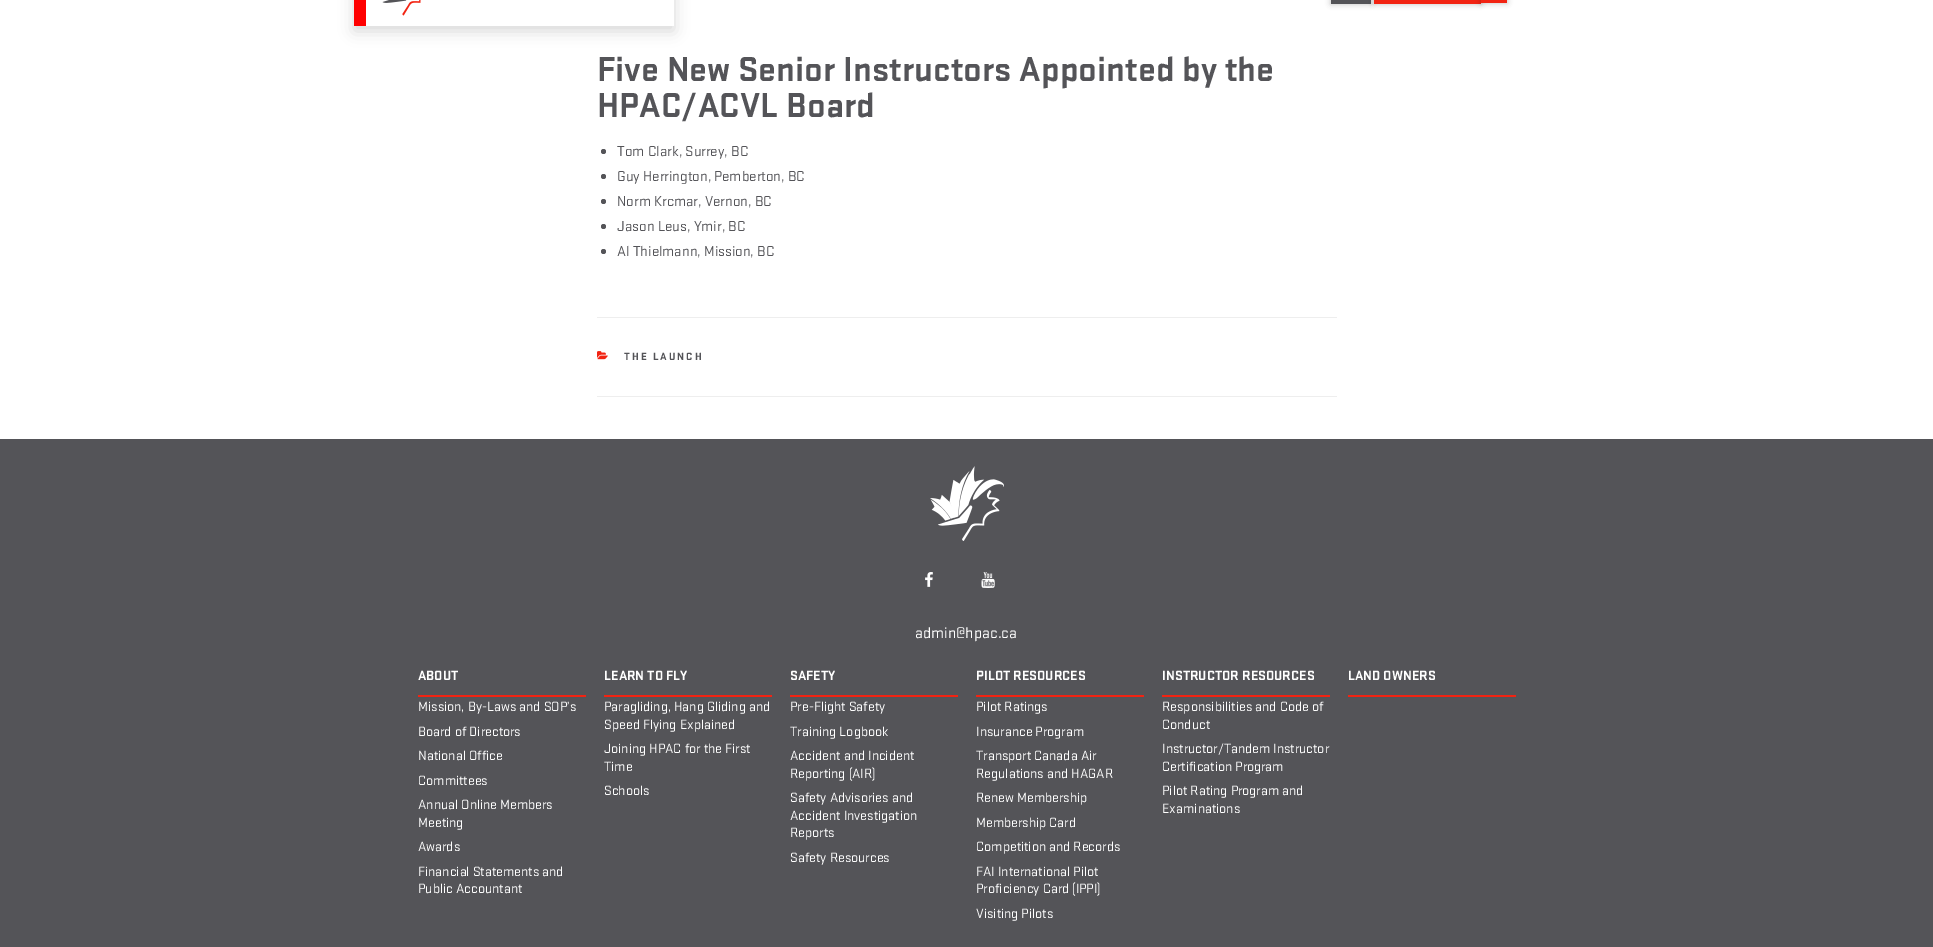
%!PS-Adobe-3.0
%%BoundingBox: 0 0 1933 947
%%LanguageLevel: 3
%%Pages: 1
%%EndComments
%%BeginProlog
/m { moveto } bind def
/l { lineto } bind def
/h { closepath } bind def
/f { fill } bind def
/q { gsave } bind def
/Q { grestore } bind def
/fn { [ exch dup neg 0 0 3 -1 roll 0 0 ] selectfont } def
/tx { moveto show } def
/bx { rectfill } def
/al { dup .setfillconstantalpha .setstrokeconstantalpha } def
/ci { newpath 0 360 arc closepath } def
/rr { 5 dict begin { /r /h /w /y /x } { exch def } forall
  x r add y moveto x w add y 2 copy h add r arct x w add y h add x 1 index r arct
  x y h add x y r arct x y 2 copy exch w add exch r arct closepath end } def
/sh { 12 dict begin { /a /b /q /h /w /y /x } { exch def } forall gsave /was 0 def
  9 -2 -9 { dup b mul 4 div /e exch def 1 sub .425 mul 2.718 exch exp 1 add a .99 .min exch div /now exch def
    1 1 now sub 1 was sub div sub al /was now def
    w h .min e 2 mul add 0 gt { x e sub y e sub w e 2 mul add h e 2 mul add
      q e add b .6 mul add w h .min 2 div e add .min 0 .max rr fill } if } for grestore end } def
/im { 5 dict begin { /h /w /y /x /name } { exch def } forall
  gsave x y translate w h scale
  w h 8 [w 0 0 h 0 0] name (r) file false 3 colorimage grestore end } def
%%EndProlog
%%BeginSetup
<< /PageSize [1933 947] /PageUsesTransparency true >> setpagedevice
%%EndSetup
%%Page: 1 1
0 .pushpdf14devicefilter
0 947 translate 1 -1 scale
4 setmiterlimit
1 setgray
0 0 1933 947 bx
q
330 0 m 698 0 l 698 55 l 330 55 l h 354 -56 m 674 -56 l 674 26 l 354 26 l h eoclip newpath
0.4 setgray
354 -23 320 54 0 7.5 0.25 sh
Q
1 0 0 setrgbcolor
354 0 12 26 bx
(image0.raw) 382 0 39 16 im
0 setgray
1331 -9 40 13 0 3 0.25 sh
0.329 0.329 0.345 setrgbcolor
1331 0 40 4 bx
0 setgray
1374 -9 107 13 0 3 0.25 sh
0.949 0.137 0.071 setrgbcolor
1374 0 107 4 bx
0 setgray
1481 -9 26 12 0 3 0.25 sh
0.949 0.137 0.071 setrgbcolor
1481 0 26 3 bx
/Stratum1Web-Bold 36 fn
0.329 0.329 0.345 setrgbcolor
(Five New Senior Instructors Appointed by the) 597 81 tx
(HPAC/ACVL Board) 597 117 tx
603.5 151.5 2.5 ci f
/Stratum1Web-Regular 15 fn
(Tom Clark, Surrey, BC) 617 156 tx
603.5 176.5 2.5 ci f
(Guy Herrington, Pemberton, BC) 617 181 tx
603.5 201.5 2.5 ci f
(Norm Krcmar, Vernon, BC) 617 206 tx
603.5 226.5 2.5 ci f
(Jason Leus, Ymir, BC) 617 231 tx
603.5 251.5 2.5 ci f
(Al Thielmann, Mission, BC) 617 256 tx
0.933 setgray
597 317 740 1 bx
597 396 740 1 bx
(image1.raw) 597 351 11 9 im
/Stratum1Web-Bold 11 fn
0.329 0.329 0.345 setrgbcolor
624 360 m 2 0 (THE LAUNCH) ashow
0 439 1933 508 bx
(image2.raw) 930 466 74 75 im
(image3.raw) 925 572 8 15 im
(image4.raw) 981 572 14 16 im
/Stratum1Web-Regular 16 fn
1 setgray
(admin@hpac.ca) 915 638 tx
0.949 0.137 0.071 setrgbcolor
418 695 168 2 bx
/Stratum1Web-Bold 14 fn
1 setgray
(ABOUT) 418 680 tx
/Stratum1Web-Regular 14 fn
(Mission, By-Laws and SOP’s) 418 711 tx
(Board of Directors) 418 736 tx
(National Office) 418 760 tx
(Committees) 418 785 tx
(Annual Online Members) 418 809 tx
(Meeting) 418 827 tx
(Awards) 418 851 tx
(Financial Statements and) 418 876 tx
(Public Accountant) 418 893 tx
0.949 0.137 0.071 setrgbcolor
604 695 168 2 bx
/Stratum1Web-Bold 14 fn
1 setgray
(LEARN TO FLY) 604 680 tx
/Stratum1Web-Regular 14 fn
(Paragliding, Hang Gliding and) 604 711 tx
(Speed Flying Explained) 604 729 tx
(Joining HPAC for the First) 604 753 tx
(Time) 604 771 tx
(Schools) 604 795 tx
0.949 0.137 0.071 setrgbcolor
790 695 168 2 bx
/Stratum1Web-Bold 14 fn
1 setgray
(SAFETY) 790 680 tx
/Stratum1Web-Regular 14 fn
(Pre-Flight Safety) 790 711 tx
(Training Logbook) 790 736 tx
(Accident and Incident) 790 760 tx
(Reporting \(AIR\)) 790 778 tx
(Safety Advisories and) 790 802 tx
(Accident Investigation) 790 820 tx
(Reports) 790 837 tx
(Safety Resources) 790 862 tx
0.949 0.137 0.071 setrgbcolor
976 695 168 2 bx
/Stratum1Web-Bold 14 fn
1 setgray
(PILOT RESOURCES) 976 680 tx
/Stratum1Web-Regular 14 fn
(Pilot Ratings) 976 711 tx
(Insurance Program) 976 736 tx
(Transport Canada Air) 976 760 tx
(Regulations and HAGAR) 976 778 tx
(Renew Membership) 976 802 tx
(Membership Card) 976 827 tx
(Competition and Records) 976 851 tx
(FAI International Pilot) 976 876 tx
(Proficiency Card \(IPPI\)) 976 893 tx
(Visiting Pilots) 976 918 tx
0.949 0.137 0.071 setrgbcolor
1162 695 168 2 bx
/Stratum1Web-Bold 14 fn
1 setgray
(INSTRUCTOR RESOURCES) 1162 680 tx
/Stratum1Web-Regular 14 fn
(Responsibilities and Code of) 1162 711 tx
(Conduct) 1162 729 tx
(Instructor/Tandem Instructor) 1162 753 tx
(Certification Program) 1162 771 tx
(Pilot Rating Program and) 1162 795 tx
(Examinations) 1162 813 tx
0.949 0.137 0.071 setrgbcolor
1348 695 168 2 bx
/Stratum1Web-Bold 14 fn
1 setgray
(LAND OWNERS) 1348 680 tx
.poppdf14devicefilter showpage
%%EOF
